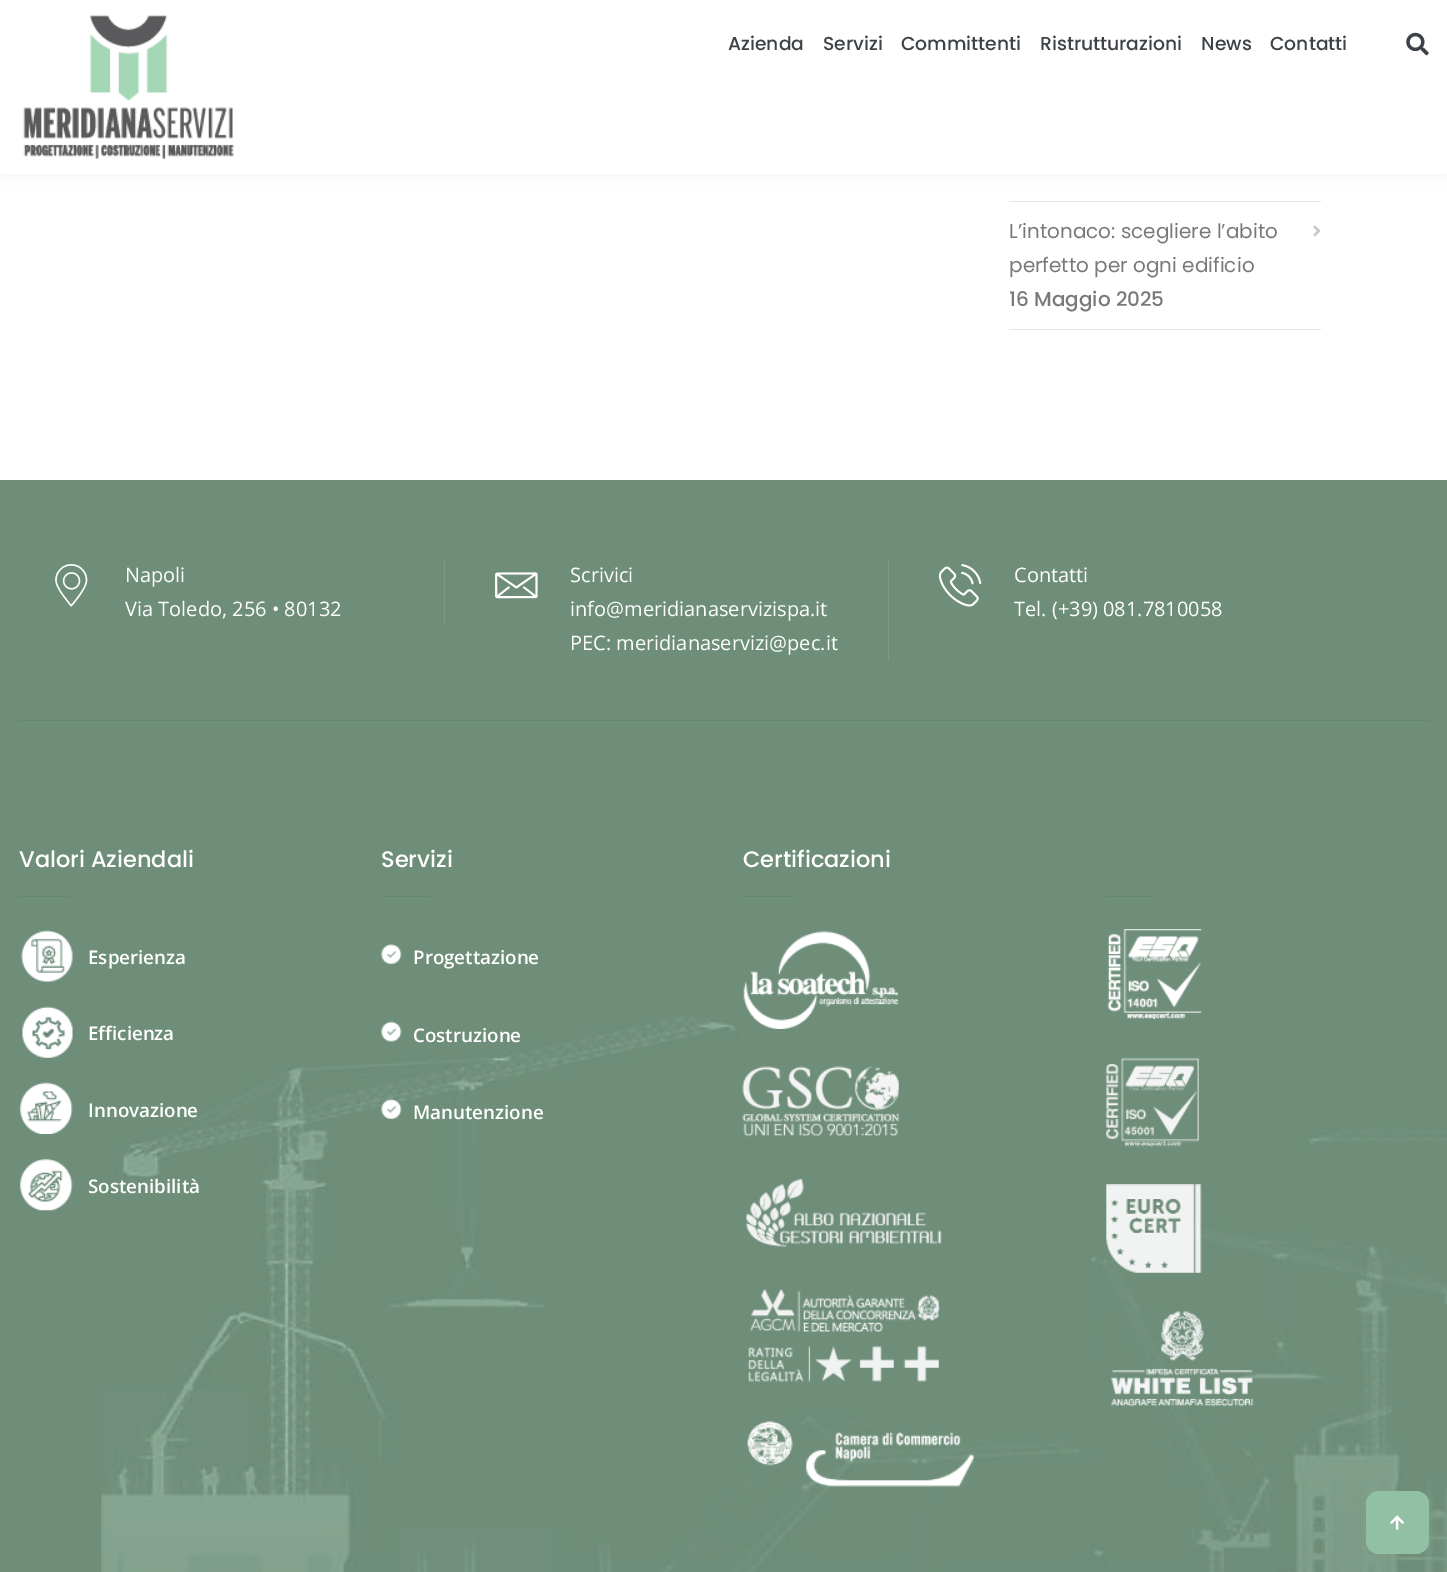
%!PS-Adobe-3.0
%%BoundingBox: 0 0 1447 1572
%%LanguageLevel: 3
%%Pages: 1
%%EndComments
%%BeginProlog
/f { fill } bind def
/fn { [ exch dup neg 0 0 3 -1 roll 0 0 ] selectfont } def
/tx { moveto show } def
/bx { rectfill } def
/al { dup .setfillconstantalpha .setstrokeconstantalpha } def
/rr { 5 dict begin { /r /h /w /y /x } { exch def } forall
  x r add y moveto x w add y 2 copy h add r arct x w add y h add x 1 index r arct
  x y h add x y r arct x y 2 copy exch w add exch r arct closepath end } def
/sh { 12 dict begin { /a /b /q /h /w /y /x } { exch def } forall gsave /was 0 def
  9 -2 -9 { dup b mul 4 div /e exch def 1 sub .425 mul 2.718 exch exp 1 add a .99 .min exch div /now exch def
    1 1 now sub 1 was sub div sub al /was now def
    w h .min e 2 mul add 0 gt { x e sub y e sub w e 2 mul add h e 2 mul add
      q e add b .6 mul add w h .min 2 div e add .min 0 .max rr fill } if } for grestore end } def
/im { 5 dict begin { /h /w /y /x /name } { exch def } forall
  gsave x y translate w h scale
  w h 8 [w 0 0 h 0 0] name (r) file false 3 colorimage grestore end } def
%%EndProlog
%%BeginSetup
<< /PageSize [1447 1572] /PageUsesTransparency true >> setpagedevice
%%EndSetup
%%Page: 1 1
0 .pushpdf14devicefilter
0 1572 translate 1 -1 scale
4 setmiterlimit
1 setgray
0 0 1447 1572 bx
0.89 setgray
0 0 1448 174 0 6 0.6 sh
1 setgray
0 0 1447 174 bx
(image0.raw) 23 15 211 144 im
/Poppins-Medium 18.75 fn
0.239 0.259 0.282 setrgbcolor
(Azienda) 728 50 tx
(Servizi) 823 50 tx
(Committenti) 901 50 tx
(Ristrutturazioni) 1040 50 tx
(News) 1201 50 tx
(Contatti) 1270 50 tx
(image1.raw) 1406 32 23 24 im
0.902 setgray
1009 201 312 1 bx
1009 329 312 1 bx
/Poppins-Regular 20 fn
0.475 setgray
(L’intonaco: scegliere l’abito) 1009 238 tx
(perfetto per ogni edificio) 1009 272 tx
(image2.raw) 1313 225 8 12 im
/Poppins-Medium 20 fn
(16 Maggio 2025) 1009 306 tx
0.431 0.557 0.478 setrgbcolor
0 480 1447 1092 bx
(image3.raw) 101 1016 1346 556 im
0.392 0.525 0.451 setrgbcolor
19 720 1410 1 bx
(image4.raw) 55 564 33 43 im
/OpenSans-Regular 20 fn
1 setgray
(Napoli) 125 582 tx
0.49 0.6 0.529 setrgbcolor
444 559 1 67 bx
1 setgray
(Via Toledo, 256 • 80132) 125 616 tx
(image5.raw) 495 572 43 27 im
(Scrivici) 570 582 tx
0.49 0.6 0.529 setrgbcolor
888 559 1 101 bx
1 setgray
(info@meridianaservizispa.it) 570 616 tx
(PEC: meridianaservizi@pec.it) 570 650 tx
(image6.raw) 938 564 44 43 im
(Contatti) 1014 582 tx
(Tel. \(+39\) 081.7810058) 1014 616 tx
/Poppins-Medium 22.5 fn
(Valori Aziendali) 19 867 tx
0.392 0.525 0.451 setrgbcolor
19 896 50 1 bx
(image7.raw) 21 930 52 52 im
/OpenSans-SemiBold 18.75 fn
1 setgray
(Esperienza) 88 964 tx
(image8.raw) 22 1006 51 52 im
(Efficienza) 88 1040 tx
(image9.raw) 19 1082 54 52 im
(Innovazione) 88 1117 tx
(image10.raw) 19 1158 54 53 im
(Sostenibilità) 88 1193 tx
/Poppins-Medium 22.5 fn
(Servizi) 381 867 tx
0.392 0.525 0.451 setrgbcolor
381 896 50 1 bx
(image11.raw) 381 944 21 20 im
/OpenSans-SemiBold 18.75 fn
1 setgray
(Progettazione) 413 964 tx
(image12.raw) 381 1021 21 21 im
(Costruzione) 413 1042 tx
(image13.raw) 381 1099 21 20 im
(Manutenzione) 413 1119 tx
/Poppins-Medium 22.5 fn
(Certificazioni) 743 867 tx
0.392 0.525 0.451 setrgbcolor
743 896 50 1 bx
(image14.raw) 743 931 156 98 im
(image15.raw) 742 1066 157 71 im
(image16.raw) 746 1178 196 69 im
(image17.raw) 748 1289 192 93 im
(image18.raw) 747 1421 227 66 im
1105 896 50 1 bx
(image19.raw) 1107 929 95 90 im
(image20.raw) 1106 1057 93 90 im
(image21.raw) 1106 1184 96 89 im
(image22.raw) 1111 1311 142 96 im
0.573 0.753 0.643 setrgbcolor
1366 1491 63 63 13 rr f
(image23.raw) 1390 1515 14 15 im
.poppdf14devicefilter showpage
%%EOF
